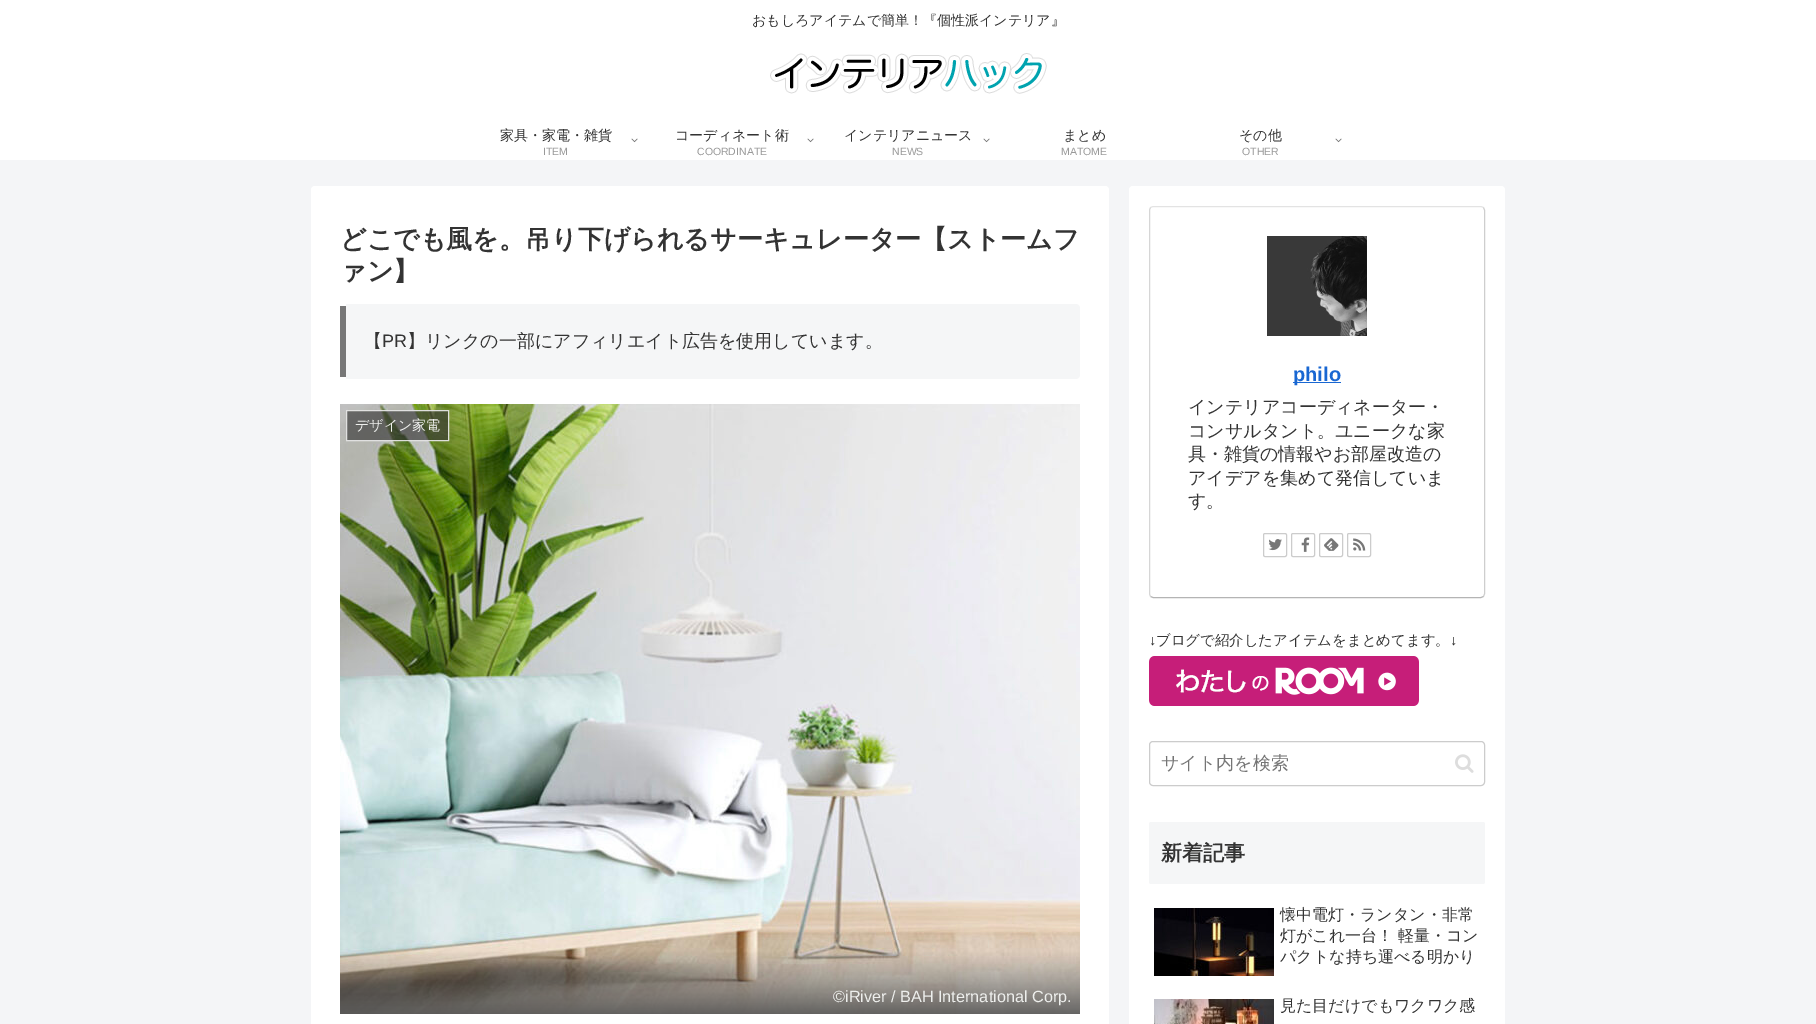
%!PS-Adobe-3.0
%%BoundingBox: 0 0 1816 1024
%%LanguageLevel: 3
%%Pages: 1
%%EndComments
%%BeginProlog
/m { moveto } bind def
/l { lineto } bind def
/c { curveto } bind def
/h { closepath } bind def
/f { fill } bind def
/S { stroke } bind def
/fn { [ exch dup neg 0 0 3 -1 roll 0 0 ] selectfont } def
/tx { moveto show } def
/bx { rectfill } def
/al { dup .setfillconstantalpha .setstrokeconstantalpha } def
/rr { 5 dict begin { /r /h /w /y /x } { exch def } forall
  x r add y moveto x w add y 2 copy h add r arct x w add y h add x 1 index r arct
  x y h add x y r arct x y 2 copy exch w add exch r arct closepath end } def
/im { 5 dict begin { /h /w /y /x /name } { exch def } forall
  gsave x y translate w h scale
  w h 8 [w 0 0 h 0 0] name (r) file false 3 colorimage grestore end } def
%%EndProlog
%%BeginSetup
<< /PageSize [1816 1024] /PageUsesTransparency true >> setpagedevice
%%EndSetup
%%Page: 1 1
0 .pushpdf14devicefilter
0 1024 translate 1 -1 scale
4 setmiterlimit
0.957 0.961 0.969 setrgbcolor
0 0 1816 1024 bx
1 setgray
0 0 1816 160 bx
/WenQuanYiZenHei-Medium 14 fn
0.2 setgray
(おもしろアイテムで簡単！『個性派インテリア』) 752 25 tx
(image0.raw) 770 53 277 41 im
(家具・家電・雑貨) 500 140 tx
/LiberationSans-Regular 10.5 fn
0.6 setgray
(ITEM) 543 155 tx
(image1.raw) 631 138 7 5 im
/WenQuanYiZenHei-Medium 14 fn
0.2 setgray
(コーディネート術) 675 140 tx
/LiberationSans-Regular 10.5 fn
0.6 setgray
(COORDINATE) 697 155 tx
(image1.raw) 807 138 7 5 im
/WenQuanYiZenHei-Medium 14 fn
0.2 setgray
(インテリアニュース) 844 140 tx
/LiberationSans-Regular 10.5 fn
0.6 setgray
(NEWS) 892 155 tx
(image1.raw) 983 138 7 5 im
/WenQuanYiZenHei-Medium 14 fn
0.2 setgray
(まとめ) 1063 140 tx
/LiberationSans-Regular 10.5 fn
0.6 setgray
(MATOME) 1061 155 tx
/WenQuanYiZenHei-Medium 14 fn
0.2 setgray
(その他) 1239 140 tx
/LiberationSans-Regular 10.5 fn
0.6 setgray
(OTHER) 1242 155 tx
(image1.raw) 1335 138 7 5 im
1 setgray
311 186 798 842 4 rr f
/WenQuanYiZenHei-Bold 26 fn
0.2 setgray
(どこでも風を。吊り下げられるサーキュレーター【ストームフ) 340 248 tx
(ァン】) 340 280 tx
0.961 0.965 0.969 setrgbcolor
346 304 m 1076 304 l 1078 304 1080 306 1080 308 c 1080 375 l 1080 377 1078 379 1076 379 c 346 379 l h f
0.467 setgray
340 306 6 71 bx
/WenQuanYiZenHei-Medium 18 fn
0.2 setgray
(【) 364 347 tx
/LiberationSans-Regular 18 fn
(PR) 382 347 tx
/WenQuanYiZenHei-Medium 18 fn
(】リンクの一部にアフィリエイト広告を使用しています。) 407 347 tx
(image2.raw) 340 404 740 610 im
0.63 al
346 410 103 31 bx
0.9 al
0.933 setgray
346.5 410.5 102 30 rectstroke
/WenQuanYiZenHei-Medium 14 fn
1 al
0.933 0.937 0.929 setrgbcolor
(デザイン家電) 355 430 tx
/LiberationSans-Regular 16.25 fn
(©iRiver / BAH International Corp.) 833 1002 tx
1 setgray
1129 186 376 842 4 rr f
0.89 setgray
1150.5 207.5 m 1153 206.5 l 1481 206.5 l 1483.5 207.5 l S
0.808 setgray
1483.5 207.5 m 1484.5 210 l 1484.5 594 l 1483.5 596.5 l S
0.706 setgray
1483.5 596.5 m 1481 597.5 l 1153 597.5 l 1150.5 596.5 l S
0.839 setgray
1150.5 596.5 m 1149.5 594 l 1149.5 210 l 1150.5 207.5 l S
(image3.raw) 1267 236 100 100 im
0.098 0.404 0.824 setrgbcolor
1293 382 48 1 bx
/LiberationSans-Bold 20 fn
(philo) 1293 381 tx
/WenQuanYiZenHei-Medium 18 fn
0.2 setgray
(インテリアコーディネーター・) 1188 413 tx
(コンサルタント。ユニークな家) 1188 437 tx
(具・雑貨の情報やお部屋改造の) 1188 460 tx
(アイデアを集めて発信していま) 1188 484 tx
(す。) 1188 507 tx
0.8 setgray
1263.5 533.5 23 23 1.5 rr S
(image4.raw) 1268 539 14 12 im
1291.5 533.5 23 23 1.5 rr S
(image5.raw) 1301 537 9 15 im
1319.5 533.5 23 23 1.5 rr S
(image6.raw) 1324 538 15 13 im
1347.5 533.5 23 23 1.5 rr S
(image7.raw) 1353 538 13 13 im
/LiberationSans-Regular 14.4 fn
0.2 setgray
(↓) 1149 645 tx
/WenQuanYiZenHei-Medium 14.4 fn
(ブログで紹介したアイテムをまとめてます。) 1156 645 tx
/LiberationSans-Regular 14.4 fn
(↓) 1450 645 tx
(image8.raw) 1149 656 270 50 im
0.8 setgray
1149.5 741.5 335 44 3.5 rr S
/WenQuanYiZenHei-Medium 18 fn
0.459 setgray
(サイト内を検索) 1161 769 tx
(image9.raw) 1455 754 19 19 im
0.961 0.965 0.969 setrgbcolor
1149 822 336 62 2 rr f
/WenQuanYiZenHei-Bold 21 fn
0.2 setgray
(新着記事) 1161 860 tx
(image10.raw) 1154 908 120 68 im
/WenQuanYiZenHei-Medium 16 fn
(懐中電灯・ランタン・非常) 1280 920 tx
(灯がこれ一台！ 軽量・コン) 1280 941 tx
(パクトな持ち運べる明かり) 1280 962 tx
(image11.raw) 1154 999 120 25 im
(見た目だけでもワクワク感) 1280 1011 tx
.poppdf14devicefilter showpage
%%EOF
